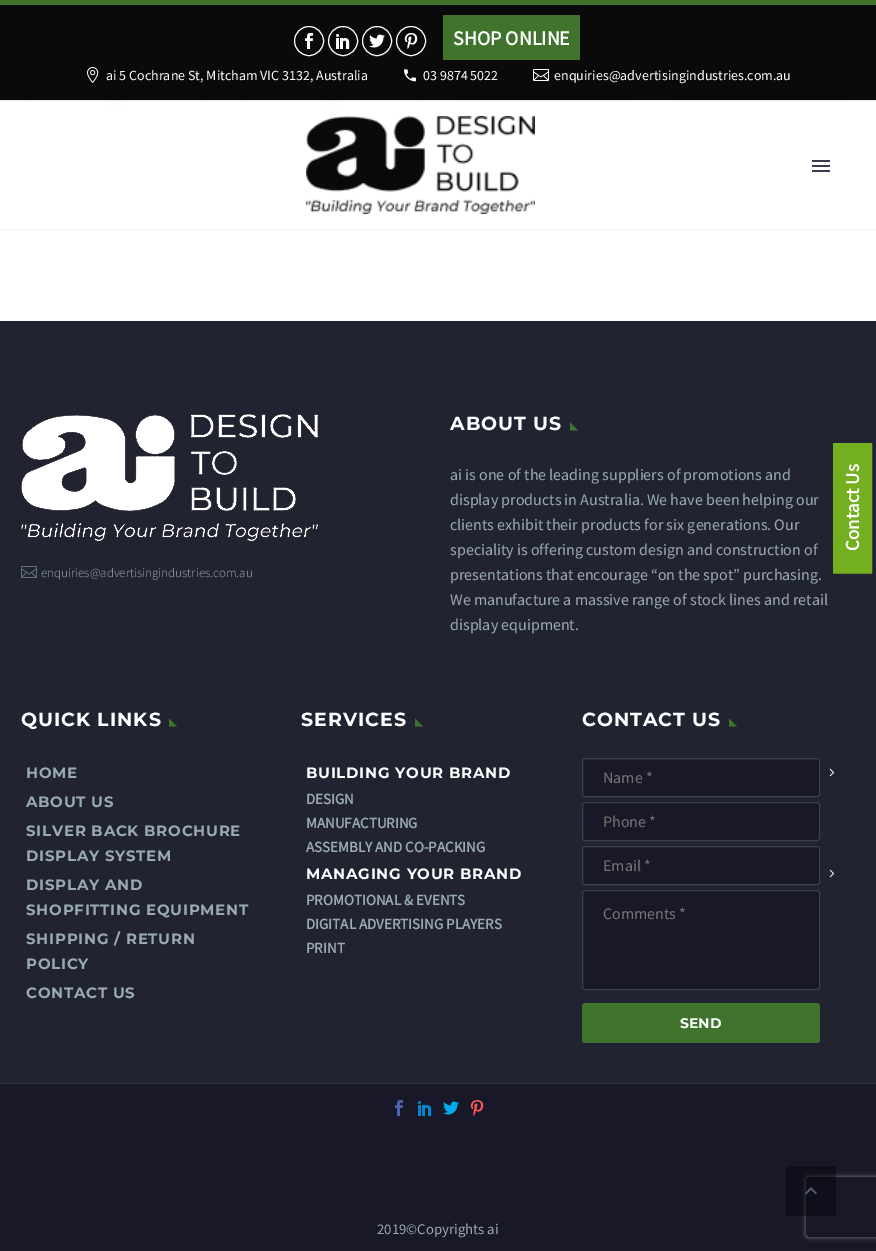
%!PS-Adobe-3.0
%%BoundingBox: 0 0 876 1251
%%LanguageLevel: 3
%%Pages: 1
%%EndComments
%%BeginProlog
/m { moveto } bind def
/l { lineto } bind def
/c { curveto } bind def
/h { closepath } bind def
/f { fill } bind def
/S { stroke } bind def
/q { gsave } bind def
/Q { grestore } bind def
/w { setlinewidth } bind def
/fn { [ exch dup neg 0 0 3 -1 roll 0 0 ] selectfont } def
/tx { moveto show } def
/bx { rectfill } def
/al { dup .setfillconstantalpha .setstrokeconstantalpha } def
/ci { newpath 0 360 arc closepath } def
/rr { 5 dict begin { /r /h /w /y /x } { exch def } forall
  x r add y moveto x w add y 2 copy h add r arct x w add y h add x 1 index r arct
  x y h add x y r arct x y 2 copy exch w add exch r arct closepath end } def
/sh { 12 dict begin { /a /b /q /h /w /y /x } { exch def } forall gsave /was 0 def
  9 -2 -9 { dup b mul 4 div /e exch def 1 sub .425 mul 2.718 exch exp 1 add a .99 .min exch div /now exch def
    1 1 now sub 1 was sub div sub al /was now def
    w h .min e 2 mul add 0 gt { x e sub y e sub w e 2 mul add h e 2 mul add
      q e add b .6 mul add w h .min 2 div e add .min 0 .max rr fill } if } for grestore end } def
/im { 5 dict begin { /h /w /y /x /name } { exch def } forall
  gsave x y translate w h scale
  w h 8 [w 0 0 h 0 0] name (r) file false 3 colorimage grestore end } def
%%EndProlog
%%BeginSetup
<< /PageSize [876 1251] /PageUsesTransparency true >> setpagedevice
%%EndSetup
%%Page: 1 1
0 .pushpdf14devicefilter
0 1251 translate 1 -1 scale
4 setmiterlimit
0.094 0.094 0.157 setrgbcolor
0 0 876 1251 bx
1 setgray
0 101 876 220 bx
0.992 0.996 0.996 setrgbcolor
31.5 -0.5 171 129 rectstroke
(image0.raw) 109 101 16 7 im
245.5 -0.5 171 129 rectstroke
(image0.raw) 323 101 16 7 im
459.5 -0.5 171 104 rectstroke
673.5 -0.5 171 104 rectstroke
q
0 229 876 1 rectclip
0.22 0.271 0.329 setrgbcolor
0 0 876 229 0 1 0.2 sh
Q
0.039 setgray
0 5 876 95 bx
0.251 0.451 0.169 setrgbcolor
0 0 876 5 bx
0.875 0.898 0.91 setrgbcolor
0 100 876 1 bx
1 setgray
309 41 14.5 ci S
(image1.raw) 305 33 8 16 im
343 41 14.5 ci S
(image2.raw) 336 34 14 15 im
377 41 14.5 ci S
(image3.raw) 369 34 16 14 im
411 41 14.5 ci S
(image4.raw) 404 33 14 16 im
0.251 0.451 0.169 setrgbcolor
443 15 137 45 bx
/SourceSansPro-Bold 20 fn
0.996 1 1 setrgbcolor
(SHOP ONLINE) 453 45 tx
(image5.raw) 87 67 12 16 im
/SourceSansPro-Regular 14 fn
(ai 5 Cochrane St, Mitcham VIC 3132, Australia) 106 80 tx
(image6.raw) 404 69 12 13 im
(03 9874 5022) 423 80 tx
(image7.raw) 533 69 16 12 im
(enquiries@advertisingindustries.com.au) 554 80 tx
(image8.raw) 306 116 229 98 im
0.235 0.224 0.314 setrgbcolor
812 160 18 2 bx
812 165 18 2 bx
812 170 18 2 bx
0.129 0.137 0.192 setrgbcolor
0 321 876 762 bx
(image9.raw) 21 414 297 127 im
(image10.raw) 21 566 16 12 im
/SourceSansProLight-Light 13 fn
0.6 0.663 0.71 setrgbcolor
(enquiries@advertisingindustries.com.au) 41 577 tx
/Montserrat-Bold 19 fn
0.996 1 1 setrgbcolor
450 430 m 1 0 (ABOUT US) ashow
0.251 0.451 0.169 setrgbcolor
570 422.5 m 570 430.5 l 578 430.5 l h f
/SourceSansPro-Regular 16 fn
0.6 0.663 0.71 setrgbcolor
(ai is one of the leading suppliers of promotions and) 450 480 tx
(display products in Australia. We have been helping our) 450 505 tx
(clients exhibit their products for six generations. Our) 450 530 tx
(speciality is offering custom design and construction of) 450 555 tx
(presentations that encourage “on the spot” purchasing.) 450 580 tx
(We manufacture a massive range of stock lines and retail) 450 605 tx
(display equipment.) 450 630 tx
/Montserrat-Bold 19 fn
0.996 1 1 setrgbcolor
21 726 m 1 0 (QUICK LINKS) ashow
0.251 0.451 0.169 setrgbcolor
169 718.5 m 169 726.5 l 177 726.5 l h f
/Montserrat-Bold 15 fn
0.6 0.663 0.71 setrgbcolor
26 778 m 0.75 0 (HOME) ashow
26 807 m 0.75 0 (ABOUT US) ashow
26 836 m 0.75 0 (SILVER BACK BROCHURE) ashow
26 861 m 0.75 0 (DISPLAY SYSTEM) ashow
26 890 m 0.75 0 (DISPLAY AND) ashow
26 915 m 0.75 0 (SHOPFITTING EQUIPMENT) ashow
26 944 m 0.75 0 (SHIPPING / RETURN) ashow
26 969 m 0.75 0 (POLICY) ashow
26 998 m 0.75 0 (CONTACT US) ashow
/Montserrat-Bold 19 fn
0.996 1 1 setrgbcolor
301 726 m 1 0 (SERVICES) ashow
0.251 0.451 0.169 setrgbcolor
415 718.5 m 415 726.5 l 423 726.5 l h f
/Montserrat-Bold 15 fn
0.996 1 1 setrgbcolor
306 778 m 0.75 0 (BUILDING YOUR BRAND) ashow
(image11.raw) 829 768 5 9 im
/SourceSansPro-Bold 15 fn
0.6 0.663 0.71 setrgbcolor
(DESIGN) 306 804 tx
(MANUFACTURING) 306 828 tx
(ASSEMBLY AND CO-PACKING) 306 852 tx
/Montserrat-Bold 15 fn
0.996 1 1 setrgbcolor
306 879 m 0.75 0 (MANAGING YOUR BRAND) ashow
(image11.raw) 829 869 5 9 im
/SourceSansPro-Bold 15 fn
0.6 0.663 0.71 setrgbcolor
(PROMOTIONAL & EVENTS) 306 905 tx
(DIGITAL ADVERTISING PLAYERS) 306 929 tx
(PRINT) 306 953 tx
/Montserrat-Bold 19 fn
0.996 1 1 setrgbcolor
582 726 m 1 0 (CONTACT US) ashow
0.251 0.451 0.169 setrgbcolor
729 718.5 m 729 726.5 l 737 726.5 l h f
0.094 0.094 0.157 setrgbcolor
582.5 758.5 237 38 2.5 rr q f Q
0.224 0.251 0.314 setrgbcolor
S
/SourceSansPro-Regular 16 fn
0.459 setgray
(Name *) 603 783 tx
0.094 0.094 0.157 setrgbcolor
582.5 802.5 237 38 2.5 rr q f Q
0.224 0.251 0.314 setrgbcolor
S
0.459 setgray
(Phone *) 603 827 tx
0.094 0.094 0.157 setrgbcolor
582.5 846.5 237 38 2.5 rr q f Q
0.224 0.251 0.314 setrgbcolor
S
0.459 setgray
(Email *) 603 871 tx
0.094 0.094 0.157 setrgbcolor
582.5 890.5 237 99 2.5 rr q f Q
0.224 0.251 0.314 setrgbcolor
S
0.459 setgray
(Comments *) 603 919 tx
0.251 0.451 0.169 setrgbcolor
582 1003 238 40 3 rr f
/Montserrat-Bold 14 fn
0.996 1 1 setrgbcolor
(SEND) 680 1028 tx
q
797 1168 m 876 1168 l 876 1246 l 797 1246 l h 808 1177 m 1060 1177 l 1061 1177 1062 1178 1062 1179 c 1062 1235 l 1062 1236 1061 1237 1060 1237 c 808 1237 l 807 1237 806 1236 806 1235 c 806 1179 l 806 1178 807 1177 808 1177 c h eoclip newpath
0.502 setgray
806 1177 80 60 2 2.5 1 sh
Q
0.5 al
0.024 0.024 0.059 setrgbcolor
786 1166 50 50 bx
1 al
(image12.raw) 805 1187 12 8 im
0.192 0.212 0.275 setrgbcolor
0 1083 876 1 bx
(image13.raw) 395 1100 8 16 im
(image14.raw) 418 1101 14 15 im
(image15.raw) 443 1101 16 14 im
(image16.raw) 470 1100 14 16 im
/SourceSansPro-Regular 14.75 fn
0.6 0.663 0.71 setrgbcolor
(2019©Copyrights ai) 377 1234 tx
0.455 0.686 0.122 setrgbcolor
835 445 35 127 bx
2 w
834 572.5 m 834 444 l 871 444 l 871 572.5 l h S
/SourceSansPro-Bold 19 fn
0.996 1 1 setrgbcolor
q 859 551 translate -90 rotate 0 0 m (Contact Us) show Q
.poppdf14devicefilter showpage
%%EOF
